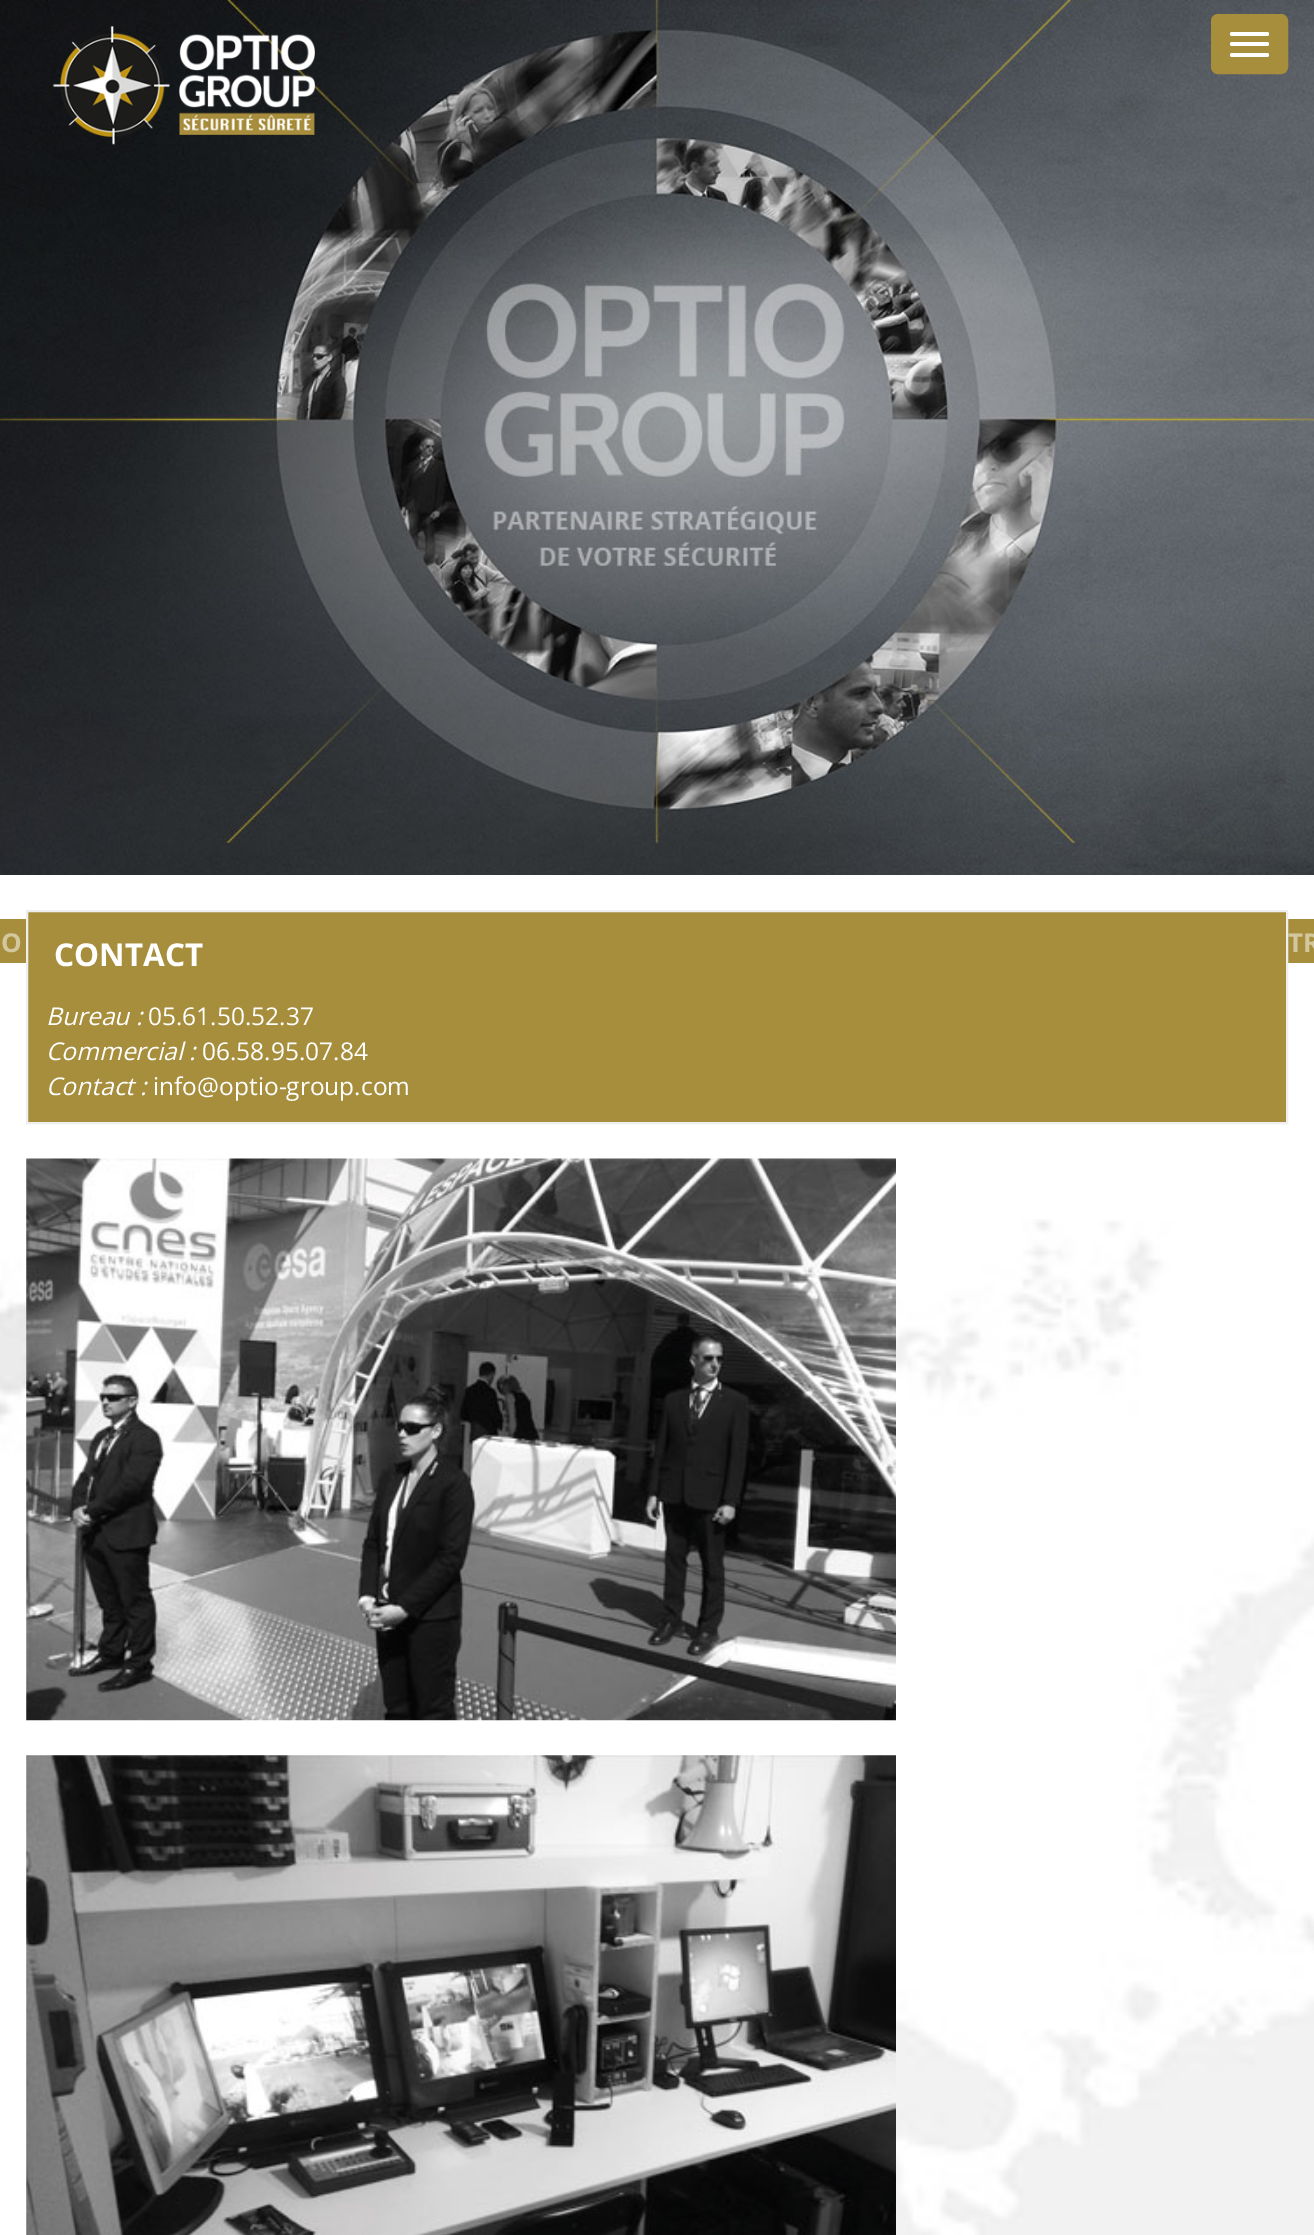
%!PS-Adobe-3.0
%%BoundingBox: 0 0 1314 2235
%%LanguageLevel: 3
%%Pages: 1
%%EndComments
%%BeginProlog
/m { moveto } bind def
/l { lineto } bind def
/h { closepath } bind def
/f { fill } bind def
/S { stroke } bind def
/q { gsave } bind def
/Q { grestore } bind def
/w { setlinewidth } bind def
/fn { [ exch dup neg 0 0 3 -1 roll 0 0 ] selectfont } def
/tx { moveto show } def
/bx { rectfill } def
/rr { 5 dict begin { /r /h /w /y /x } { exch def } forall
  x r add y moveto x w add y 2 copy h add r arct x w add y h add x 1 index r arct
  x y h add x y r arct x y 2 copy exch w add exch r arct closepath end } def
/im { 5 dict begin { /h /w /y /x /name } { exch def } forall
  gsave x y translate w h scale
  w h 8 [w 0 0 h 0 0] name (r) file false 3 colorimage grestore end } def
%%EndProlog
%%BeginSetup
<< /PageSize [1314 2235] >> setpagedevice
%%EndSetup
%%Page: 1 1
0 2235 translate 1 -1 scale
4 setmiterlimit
1 setgray
0 0 1314 2235 bx
(image1.raw) 0 0 1314 875 im
(image0.raw) 52 26 263 119 im
0.655 0.557 0.239 setrgbcolor
1212 15 75 58 6 rr q f Q
2 w
S
1 setgray
1230 32 39 4 2 rr f
1230 42 39 4 2 rr f
1230 53 39 4 2 rr f
0.655 0.557 0.239 setrgbcolor
0 919 1314 44 bx
/OpenSans-Bold 26 fn
0.827 0.78 0.62 setrgbcolor
(O) 1 952 tx
(TR) 1288 952 tx
(image2.raw) 0 1219 1314 1016 im
0.655 0.557 0.239 setrgbcolor
27 911 m 1287 911 l 1287 1123 l 27 1123 l h q f Q
0.933 setgray
S
/OpenSans-Bold 31.5 fn
1 setgray
(CONTACT) 54 966 tx
/OpenSans-Italic 24.5 fn
(Bureau :) 46 1025 tx
/OpenSans-Regular 24.5 fn
(05.61.50.52.37) 148 1025 tx
/OpenSans-Italic 24.5 fn
(Commercial :) 46 1060 tx
/OpenSans-Regular 24.5 fn
(06.58.95.07.84) 202 1060 tx
/OpenSans-Italic 24.5 fn
(Contact :) 46 1095 tx
/OpenSans-Regular 24.5 fn
(info@optio-group.com) 153 1095 tx
(image3.raw) 26 1158 870 563 im
(image4.raw) 26 1755 870 480 im
showpage
%%EOF
